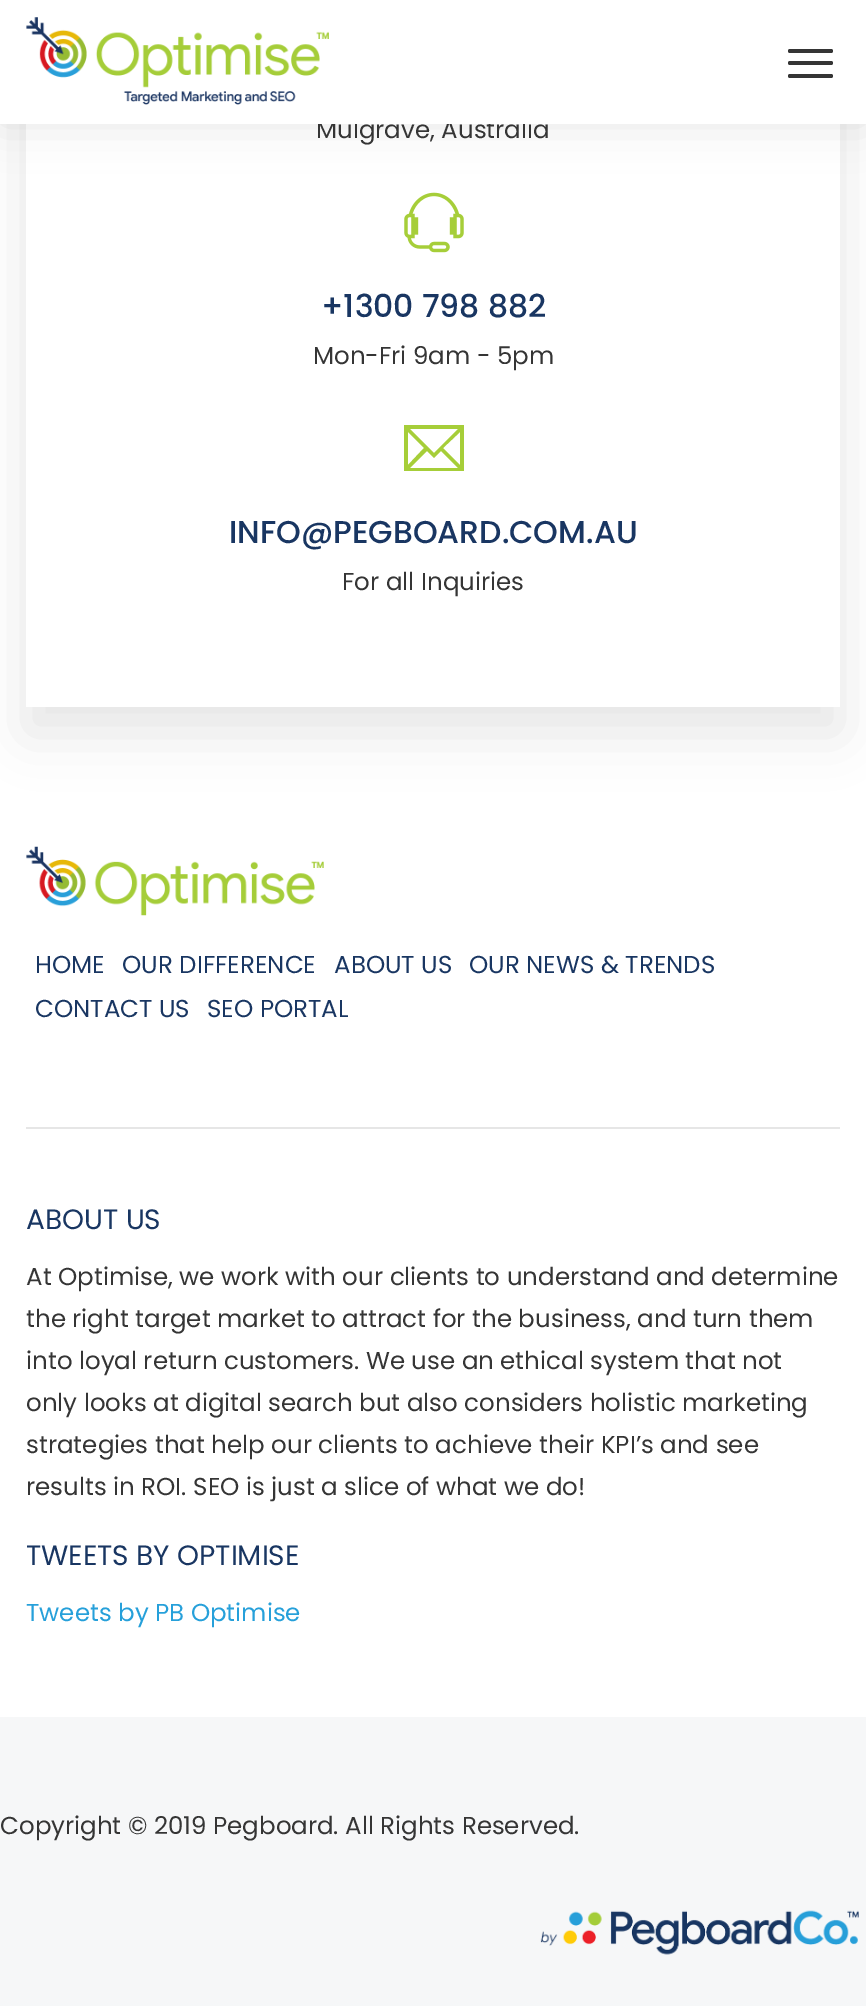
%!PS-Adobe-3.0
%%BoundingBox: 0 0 866 2006
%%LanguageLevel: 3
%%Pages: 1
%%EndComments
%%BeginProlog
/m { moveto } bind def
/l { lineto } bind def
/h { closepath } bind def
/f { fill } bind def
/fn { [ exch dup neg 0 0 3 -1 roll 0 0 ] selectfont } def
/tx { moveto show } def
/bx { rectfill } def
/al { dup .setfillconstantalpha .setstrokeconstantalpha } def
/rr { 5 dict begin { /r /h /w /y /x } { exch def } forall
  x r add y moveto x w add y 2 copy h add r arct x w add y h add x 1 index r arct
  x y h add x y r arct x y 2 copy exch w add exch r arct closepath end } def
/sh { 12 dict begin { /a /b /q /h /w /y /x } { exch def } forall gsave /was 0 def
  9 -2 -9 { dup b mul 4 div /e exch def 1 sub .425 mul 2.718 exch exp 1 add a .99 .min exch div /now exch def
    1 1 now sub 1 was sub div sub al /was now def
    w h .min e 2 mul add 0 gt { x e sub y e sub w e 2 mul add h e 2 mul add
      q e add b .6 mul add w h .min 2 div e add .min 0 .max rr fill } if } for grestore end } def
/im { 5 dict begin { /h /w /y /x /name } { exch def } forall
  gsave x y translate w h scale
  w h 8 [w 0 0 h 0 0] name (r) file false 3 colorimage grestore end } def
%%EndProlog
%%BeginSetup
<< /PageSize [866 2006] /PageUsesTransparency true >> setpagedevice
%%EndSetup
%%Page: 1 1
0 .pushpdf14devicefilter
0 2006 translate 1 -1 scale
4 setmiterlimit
1 setgray
0 0 866 2006 bx
0 setgray
26 -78 814 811 0 26 0.1 sh
1 setgray
26 124 814 583 bx
0 setgray
0 -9 866 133 0 22 0.1 sh
/Poppins-Regular 24.5 fn
0.208 setgray
(Mulgrave, Australia) 316 138 tx
1 setgray
0 0 866 124 bx
(image0.raw) 26 17 303 88 im
0.208 setgray
788 49 45 4 2 rr f
788 61 45 4 2 rr f
788 74 45 4 2 rr f
(image1.raw) 404 192 60 61 im
/Poppins-Medium 31.5 fn
0.098 0.212 0.384 setrgbcolor
(+1300 798 882) 321 317 tx
/Poppins-Regular 24.5 fn
0.208 setgray
(Mon-Fri 9am - 5pm) 313 364 tx
0.651 0.808 0.224 setrgbcolor
404 425 m 404 471 l 464 471 l 464 425 l h 434 453 m 410 429 l 458 429 l h 424 448 m 408 465 l 408 432 l h 427 451 m 434 458 l 441 451 l 458 468 l 410 468 l h 443 448 m 460 432 l 460 465 l h f
/Poppins-Medium 31.5 fn
0.098 0.212 0.384 setrgbcolor
(INFO@PEGBOARD.COM.AU) 229 543 tx
/Poppins-Regular 24.5 fn
0.208 setgray
(For all Inquiries) 342 590 tx
(image2.raw) 26 846 298 70 im
0.098 0.212 0.384 setrgbcolor
(HOME) 35 973 tx
(OUR DIFFERENCE) 122 973 tx
(ABOUT US) 334 973 tx
(OUR NEWS & TRENDS) 469 973 tx
(CONTACT US) 35 1017 tx
(SEO PORTAL) 207 1017 tx
0.902 setgray
26 1127 814 2 bx
/Poppins-Regular 28 fn
0.098 0.212 0.384 setrgbcolor
(ABOUT US) 26 1229 tx
/Poppins-Regular 24.5 fn
0.208 setgray
(At Optimise, we work with our clients to understand and determine) 26 1285 tx
(the right target market to attract for the business, and turn them) 26 1327 tx
(into loyal return customers. We use an ethical system that not) 26 1369 tx
(only looks at digital search but also considers holistic marketing) 26 1411 tx
(strategies that help our clients to achieve their KPI’s and see) 26 1453 tx
(results in ROI. SEO is just a slice of what we do!) 26 1495 tx
/Poppins-Regular 28 fn
0.098 0.212 0.384 setrgbcolor
(TWEETS BY OPTIMISE) 26 1565 tx
/Poppins-Regular 24.5 fn
0.149 0.627 0.855 setrgbcolor
(Tweets by PB Optimise) 26 1621 tx
0.965 0.969 0.973 setrgbcolor
0 1717 866 289 bx
0.208 setgray
(Copyright © 2019 Pegboard. All Rights Reserved.) 0 1834 tx
(image3.raw) 540 1910 319 45 im
.poppdf14devicefilter showpage
%%EOF
